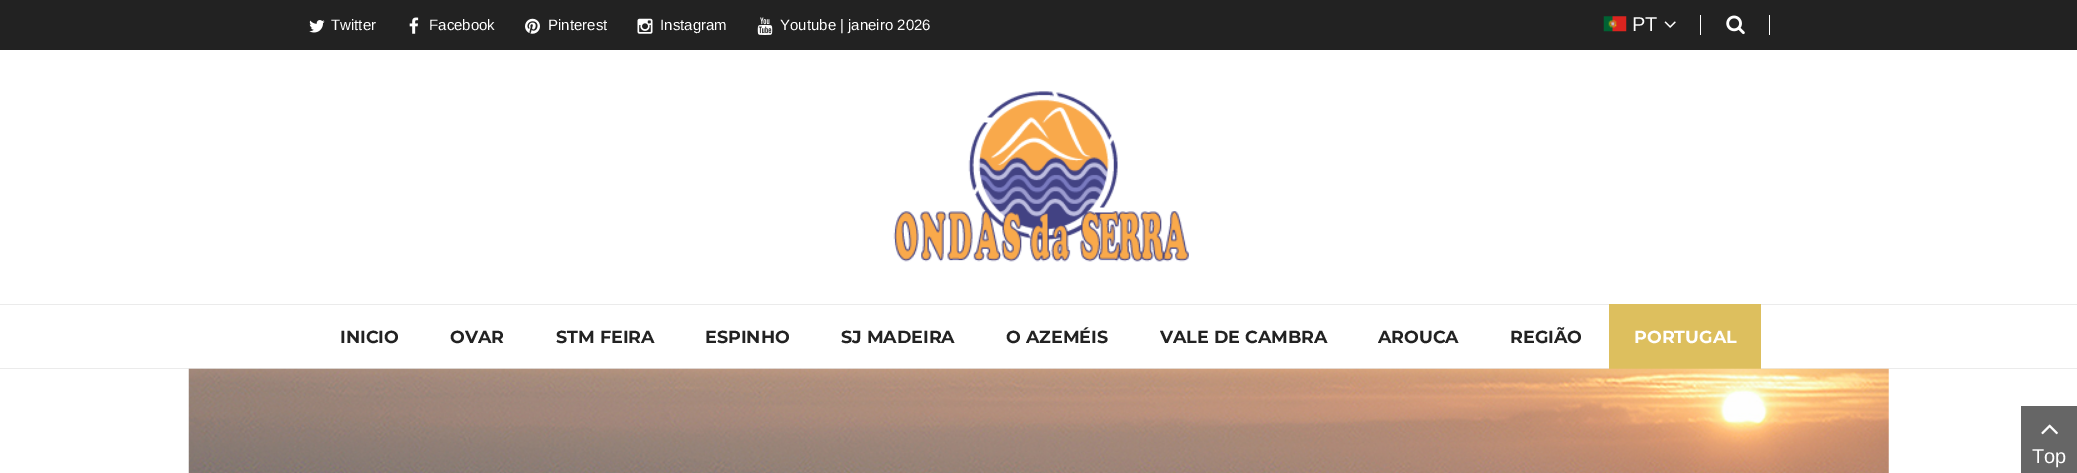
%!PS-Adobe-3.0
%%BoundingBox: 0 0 2077 473
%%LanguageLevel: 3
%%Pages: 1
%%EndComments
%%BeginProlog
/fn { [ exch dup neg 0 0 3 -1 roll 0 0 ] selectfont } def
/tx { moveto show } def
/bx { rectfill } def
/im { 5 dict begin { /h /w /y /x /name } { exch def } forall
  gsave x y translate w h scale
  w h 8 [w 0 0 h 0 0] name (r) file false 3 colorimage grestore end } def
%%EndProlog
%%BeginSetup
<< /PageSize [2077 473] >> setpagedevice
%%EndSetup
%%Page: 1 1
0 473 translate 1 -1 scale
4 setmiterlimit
1 setgray
0 0 2077 473 bx
0.133 setgray
0 0 2077 50 bx
(image0.raw) 309 20 16 13 im
/LiberationSans-Regular 15 fn
1 setgray
(Twitter) 331 30 tx
(image1.raw) 409 17 10 17 im
(Facebook) 429 30 tx
(image2.raw) 525 18 15 16 im
(Pinterest) 548 30 tx
(image3.raw) 637 18 16 16 im
(Instagram) 660 30 tx
(image4.raw) 757 17 16 18 im
(Youtube | janeiro 2026) 780 30 tx
(image5.raw) 1603 16 24 16 im
/LiberationSans-Regular 20 fn
(PT) 1632 31 tx
(image6.raw) 1664 21 12 7 im
1700 15 1 20 bx
(image7.raw) 1726 15 19 20 im
1769 15 1 20 bx
(image8.raw) 893 91 296 171 im
0.922 setgray
0 304 2077 1 bx
0 368 2077 1 bx
/Montserrat-Bold 17.5 fn
0.133 setgray
(INICIO) 340 343 tx
(OVAR) 450 343 tx
(STM FEIRA) 556 343 tx
(ESPINHO) 705 343 tx
(SJ MADEIRA) 841 343 tx
(O AZEMÉIS) 1006 343 tx
(VALE DE CAMBRA) 1160 343 tx
(AROUCA) 1378 343 tx
(REGIÃO) 1510 343 tx
0.867 0.749 0.369 setrgbcolor
1609 304 152 65 bx
1 setgray
(PORTUGAL) 1634 343 tx
(image9.raw) 188 368 1701 105 im
0.4 setgray
2021 406 56 67 bx
(image10.raw) 2041 424 17 11 im
/LiberationSans-Regular 20 fn
1 setgray
(Top) 2032 463 tx
showpage
%%EOF
